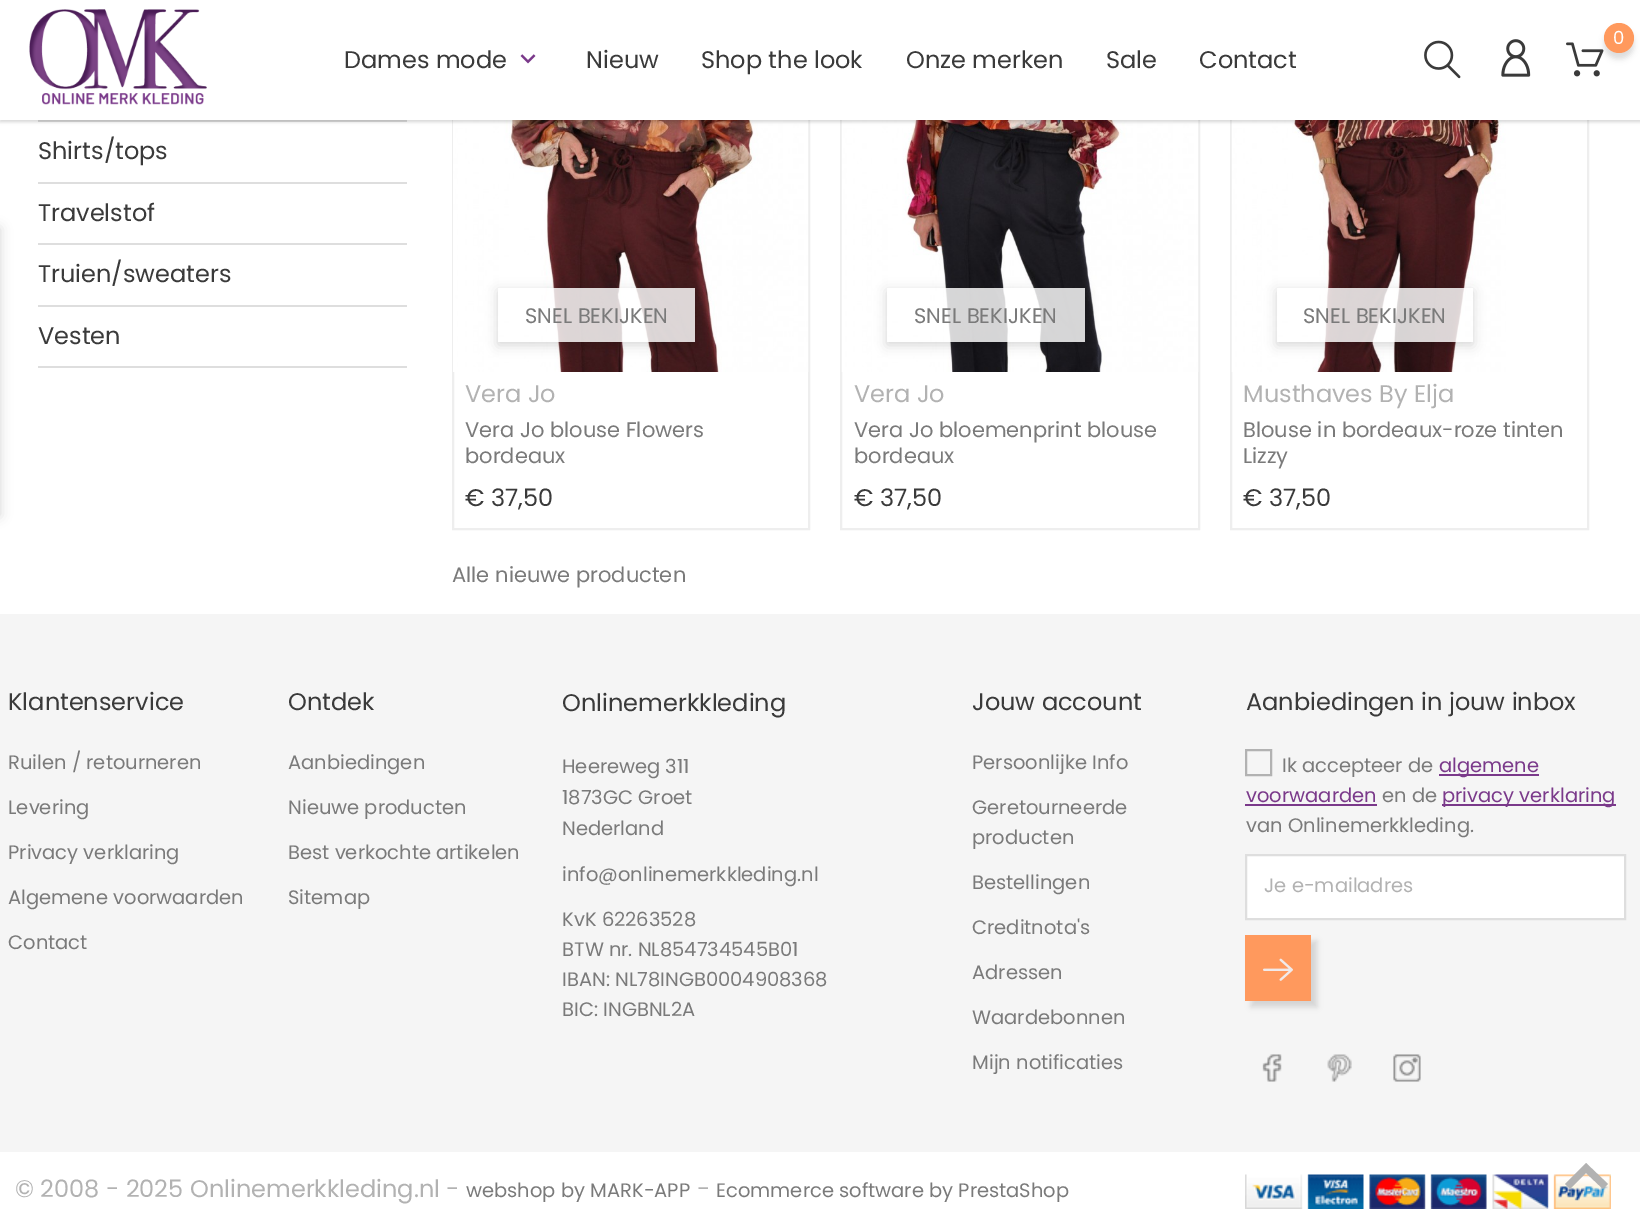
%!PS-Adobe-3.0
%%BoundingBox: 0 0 1640 1215
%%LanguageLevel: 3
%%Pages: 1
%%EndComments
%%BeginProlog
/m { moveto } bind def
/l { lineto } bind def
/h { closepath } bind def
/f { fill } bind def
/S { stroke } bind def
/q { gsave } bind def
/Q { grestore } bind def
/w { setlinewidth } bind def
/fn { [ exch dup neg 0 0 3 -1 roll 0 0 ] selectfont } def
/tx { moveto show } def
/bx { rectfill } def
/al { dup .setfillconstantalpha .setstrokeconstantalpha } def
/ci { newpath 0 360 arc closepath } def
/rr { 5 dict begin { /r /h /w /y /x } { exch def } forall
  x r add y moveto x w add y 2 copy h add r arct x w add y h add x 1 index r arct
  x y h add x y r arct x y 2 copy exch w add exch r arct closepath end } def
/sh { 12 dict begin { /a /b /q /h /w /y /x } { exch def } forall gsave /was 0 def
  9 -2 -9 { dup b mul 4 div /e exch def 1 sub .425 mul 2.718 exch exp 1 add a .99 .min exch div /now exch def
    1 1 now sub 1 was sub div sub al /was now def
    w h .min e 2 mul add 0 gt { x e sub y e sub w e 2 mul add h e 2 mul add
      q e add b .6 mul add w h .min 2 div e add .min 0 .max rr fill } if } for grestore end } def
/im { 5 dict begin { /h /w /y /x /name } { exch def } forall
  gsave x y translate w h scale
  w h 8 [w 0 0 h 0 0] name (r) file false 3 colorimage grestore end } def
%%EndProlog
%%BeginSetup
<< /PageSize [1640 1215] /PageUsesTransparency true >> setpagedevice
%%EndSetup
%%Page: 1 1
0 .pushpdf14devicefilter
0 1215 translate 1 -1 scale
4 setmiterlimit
1 setgray
0 0 1640 1215 bx
0.871 setgray
38 120 369 2 bx
0.933 setgray
2 w
453 -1 356 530 rectstroke
(image5.raw) 453 120 356 252 im
841 -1 358 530 rectstroke
(image6.raw) 841 120 358 252 im
1231 -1 357 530 rectstroke
(image7.raw) 1231 120 275 252 im
0 setgray
0 2 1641 120 0 1.5 0.15 sh
1 setgray
0 0 1640 120 bx
(image0.raw) 29 9 178 96 im
(image1.raw) 1566 42 38 35 im
0 setgray
1604 29 30 30 15 3 0.14 sh
1 0.6 0.365 setrgbcolor
1619 38 15 ci f
/Poppins-Regular 18 fn
1 setgray
(0) 1613 44 tx
/Poppins-Regular 24 fn
0.227 setgray
(Dames mode) 344 68 tx
(image2.raw) 520 54 16 10 im
(Nieuw) 586 68 tx
(Shop the look) 701 68 tx
(Onze merken) 906 68 tx
(Sale) 1106 68 tx
(Contact) 1199 68 tx
(image3.raw) 1424 40 37 39 im
(image4.raw) 1501 39 30 38 im
0 setgray
-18 228 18 288 0 6 0.16 sh
0.871 setgray
38 182 369 2 bx
0.227 setgray
(Shirts/tops) 38 159 tx
0.871 setgray
38 243 369 2 bx
0.227 setgray
(Travelstof) 38 221 tx
0.871 setgray
38 305 369 2 bx
0.227 setgray
(Truien/sweaters) 38 282 tx
0.871 setgray
38 366 369 2 bx
0.227 setgray
(Vesten) 38 344 tx
q
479 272 m 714 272 l 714 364 l 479 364 l h 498 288 m 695 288 l 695 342 l 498 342 l h eoclip newpath
0 setgray
498 291 197 54 0 6 0.16 sh
Q
0.82 al
1 setgray
547 288 148 54 bx
/Poppins-Regular 21 fn
1 al
0.478 setgray
(SNEL BEKIJKEN) 525 323 tx
/Poppins-Regular 24 fn
0.698 setgray
(Vera Jo) 465 402 tx
/Poppins-Regular 21 fn
0.478 setgray
(Vera Jo blouse Flowers) 465 437 tx
(bordeaux) 465 463 tx
/Poppins-Regular 24 fn
0.227 setgray
(€ 37,50) 465 506 tx
q
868 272 m 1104 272 l 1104 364 l 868 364 l h 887 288 m 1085 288 l 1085 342 l 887 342 l h eoclip newpath
0 setgray
887 291 198 54 0 6 0.16 sh
Q
0.82 al
1 setgray
944 288 141 54 bx
/Poppins-Regular 21 fn
1 al
0.478 setgray
(SNEL BEKIJKEN) 914 323 tx
/Poppins-Regular 24 fn
0.698 setgray
(Vera Jo) 854 402 tx
/Poppins-Regular 21 fn
0.478 setgray
(Vera Jo bloemenprint blouse) 854 437 tx
(bordeaux) 854 463 tx
/Poppins-Regular 24 fn
0.227 setgray
(€ 37,50) 854 506 tx
q
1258 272 m 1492 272 l 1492 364 l 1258 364 l h 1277 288 m 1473 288 l 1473 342 l 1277 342 l h eoclip newpath
0 setgray
1277 291 196 54 0 6 0.16 sh
Q
0.82 al
1 setgray
1323 288 142 54 bx
/Poppins-Regular 21 fn
1 al
0.478 setgray
(SNEL BEKIJKEN) 1303 323 tx
/Poppins-Regular 24 fn
0.698 setgray
(Musthaves By Elja) 1243 402 tx
/Poppins-Regular 21 fn
0.478 setgray
(Blouse in bordeaux-roze tinten) 1243 437 tx
(Lizzy) 1243 463 tx
/Poppins-Regular 24 fn
0.227 setgray
(€ 37,50) 1243 506 tx
/Poppins-Regular 21 fn
0.478 setgray
(Alle nieuwe producten) 452 582 tx
0.961 setgray
0 614 1640 538 bx
/Poppins-Regular 24 fn
0.227 setgray
(Klantenservice) 8 710 tx
/Poppins-Regular 19.5 fn
0.478 setgray
(Ruilen / retourneren) 8 769 tx
(Levering) 8 814 tx
(Privacy verklaring) 8 859 tx
(Algemene voorwaarden) 8 904 tx
(Contact) 8 949 tx
/Poppins-Regular 24 fn
0.227 setgray
(Ontdek) 288 710 tx
/Poppins-Regular 19.5 fn
0.478 setgray
(Aanbiedingen) 288 769 tx
(Nieuwe producten) 288 814 tx
(Best verkochte artikelen) 288 859 tx
(Sitemap) 288 904 tx
/Poppins-Regular 24 fn
0.227 setgray
(Onlinemerkkleding) 562 711 tx
/Poppins-Regular 19.5 fn
0.478 setgray
(Heereweg 311) 562 773 tx
(1873GC Groet) 562 804 tx
(Nederland) 562 835 tx
(info@onlinemerkkleding.nl) 562 881 tx
(KvK 62263528) 562 926 tx
(BTW nr. NL854734545B01) 562 956 tx
(IBAN: NL78INGB0004908368) 562 986 tx
(BIC: INGBNL2A) 562 1016 tx
/Poppins-Regular 24 fn
0.227 setgray
(Jouw account) 972 710 tx
/Poppins-Regular 19.5 fn
0.478 setgray
(Persoonlijke Info) 972 769 tx
(Geretourneerde) 972 814 tx
(producten) 972 844 tx
(Bestellingen) 972 889 tx
(Creditnota's) 972 934 tx
(Adressen) 972 979 tx
(Waardebonnen) 972 1024 tx
(Mijn notificaties) 972 1069 tx
/Poppins-Regular 24 fn
0.227 setgray
(Aanbiedingen in jouw inbox) 1246 710 tx
0.698 setgray
1246 750 25 25 rectstroke
/Poppins-Regular 19.5 fn
0.478 setgray
(Ik accepteer de) 1282 772 tx
0.478 0.224 0.541 setrgbcolor
1439 774 100 2 bx
(algemene) 1439 772 tx
(voorwaarden) 1246 802 tx
1245 804 132 2 bx
0.478 setgray
(en de) 1382 802 tx
0.478 0.224 0.541 setrgbcolor
1442 804 174 2 bx
(privacy verklaring) 1442 802 tx
0.478 setgray
(van Onlinemerkkleding.) 1246 832 tx
1 setgray
1246 855 m 1625 855 l 1625 919 l 1246 919 l h q f Q
0.871 setgray
S
0.698 setgray
(Je e-mailadres) 1264 892 tx
0 setgray
1251 941 66 66 0 3 0.14 sh
1 0.6 0.365 setrgbcolor
1245 935 66 66 bx
(image8.raw) 1263 958 30 23 im
(image9.raw) 1262 1054 20 28 im
(image10.raw) 1327 1054 25 28 im
(image11.raw) 1393 1054 28 28 im
/Poppins-Regular 24 fn
0.698 setgray
(© 2008 - 2025 Onlinemerkkleding.nl -) 15 1197 tx
/Poppins-Regular 19.5 fn
0.478 setgray
(webshop by MARK-APP) 466 1197 tx
/Poppins-Regular 24 fn
0.698 setgray
(-) 697 1197 tx
/Poppins-Regular 19.5 fn
0.478 setgray
(Ecommerce software by PrestaShop) 716 1197 tx
(image12.raw) 1245 1174 366 35 im
0.698 setgray
1586 1163 m 1608 1184 l 1603 1189 l 1586 1173 l 1570 1189 l 1565 1184 l h f
.poppdf14devicefilter showpage
%%EOF
